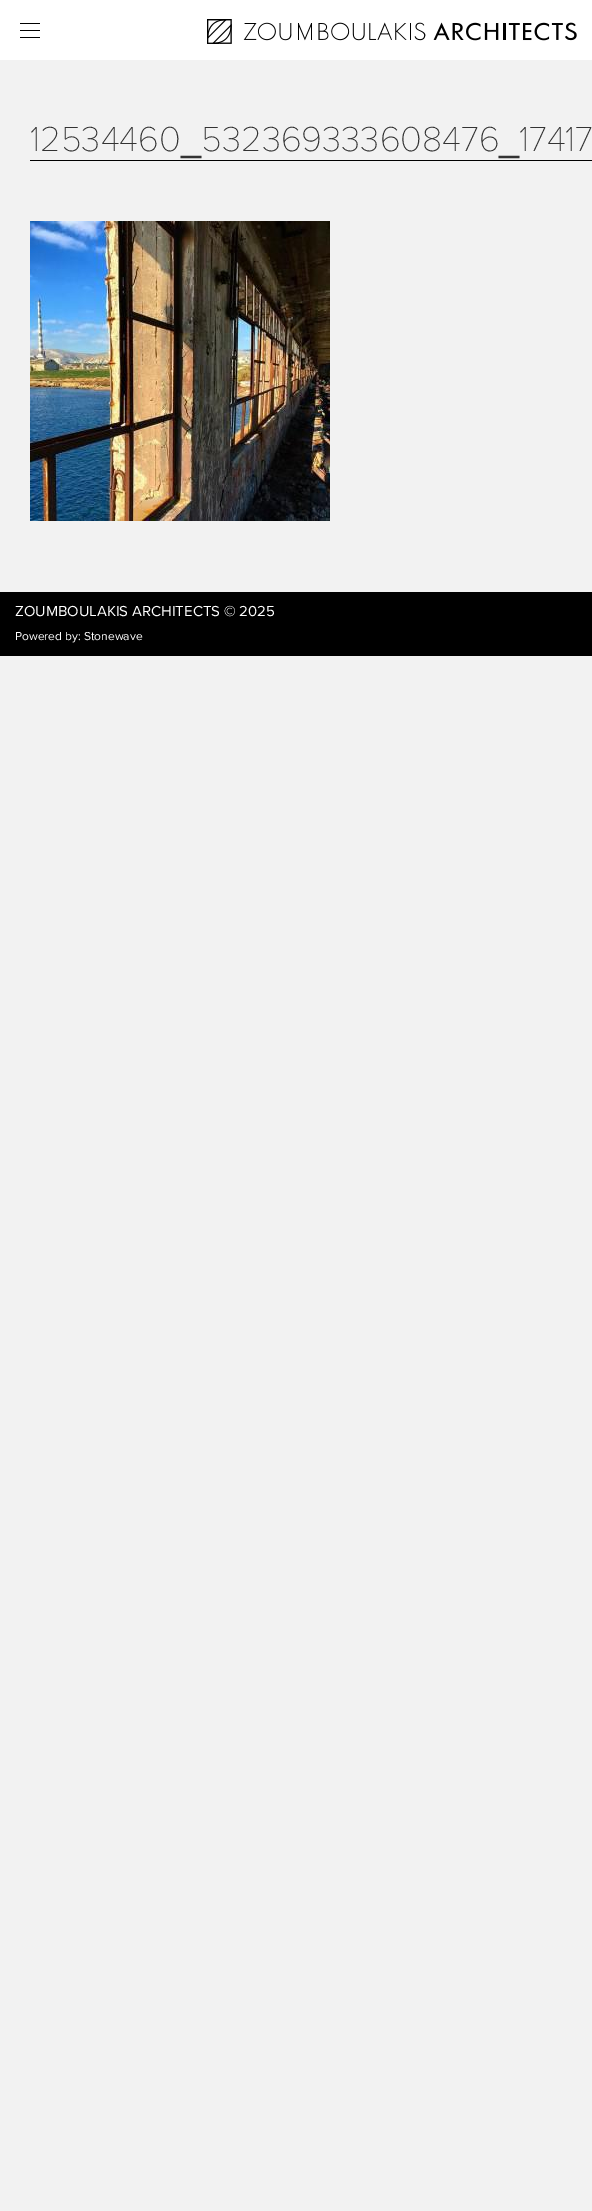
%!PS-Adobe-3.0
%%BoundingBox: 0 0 592 2211
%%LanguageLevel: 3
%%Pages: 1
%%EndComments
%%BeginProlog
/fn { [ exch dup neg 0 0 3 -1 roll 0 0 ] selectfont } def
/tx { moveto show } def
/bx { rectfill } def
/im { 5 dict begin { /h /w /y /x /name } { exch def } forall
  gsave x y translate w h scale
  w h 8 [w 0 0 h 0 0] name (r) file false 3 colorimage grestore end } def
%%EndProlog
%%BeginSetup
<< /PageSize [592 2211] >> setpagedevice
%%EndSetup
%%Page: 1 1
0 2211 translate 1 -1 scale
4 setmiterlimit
0.949 setgray
0 0 592 2211 bx
1 setgray
0 0 592 60 bx
0 setgray
20 23 20 1 bx
20 30 20 1 bx
20 37 20 1 bx
(image0.raw) 207 19 370 25 im
30 160 562 1 bx
/ProximaNova-Thin 36 fn
0.2 setgray
(12534460) 30 151 tx
(532369333608476) 201 151 tx
(17417) 519 151 tx
/LiberationSans-Regular 36 fn
(_) 181 151 tx
(_) 499 151 tx
(image1.raw) 30 221 300 300 im
0 setgray
0 592 592 64 bx
/ProximaNova-Regular 15 fn
1 setgray
(ZOUMBOULAKIS ARCHITECTS © 2025) 15 616 tx
/ProximaNova-Regular 12 fn
(Powered by: Stonewave) 15 640 tx
showpage
%%EOF
